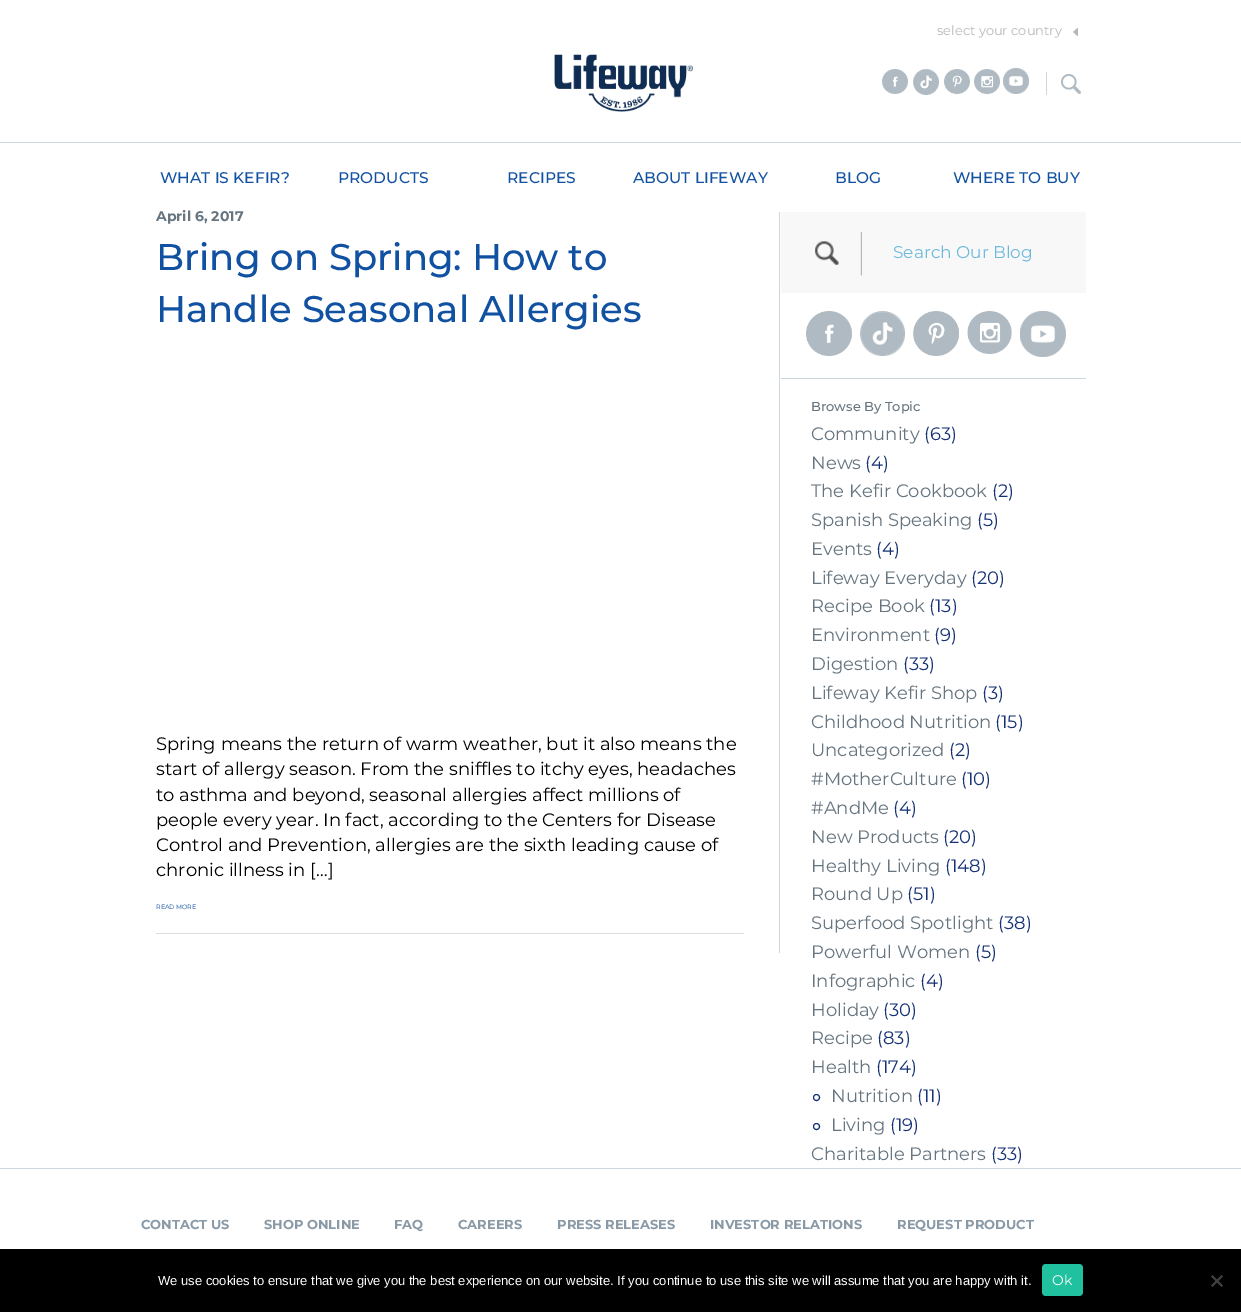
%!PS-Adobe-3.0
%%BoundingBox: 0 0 1241 1312
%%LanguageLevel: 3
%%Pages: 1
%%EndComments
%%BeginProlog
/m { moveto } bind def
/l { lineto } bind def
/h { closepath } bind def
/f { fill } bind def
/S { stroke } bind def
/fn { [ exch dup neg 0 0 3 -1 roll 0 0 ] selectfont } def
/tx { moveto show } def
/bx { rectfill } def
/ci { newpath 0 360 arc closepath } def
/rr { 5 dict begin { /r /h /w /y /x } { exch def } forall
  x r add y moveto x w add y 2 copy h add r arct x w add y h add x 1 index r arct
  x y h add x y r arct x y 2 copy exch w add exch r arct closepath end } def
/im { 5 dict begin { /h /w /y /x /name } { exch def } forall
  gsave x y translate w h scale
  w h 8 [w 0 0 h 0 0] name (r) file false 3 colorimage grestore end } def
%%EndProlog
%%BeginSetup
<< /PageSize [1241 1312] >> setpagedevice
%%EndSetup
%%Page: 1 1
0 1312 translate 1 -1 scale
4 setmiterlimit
1 setgray
0 0 1241 1312 bx
/Montserrat-Thin 13 fn
0.722 setgray
(select your country) 937 35 tx
(image0.raw) 1073 28 5 8 im
(image1.raw) 882 69 26 25 im
(image2.raw) 913 69 26 26 im
(image3.raw) 944 69 26 25 im
(image4.raw) 974 69 26 25 im
(image5.raw) 1003 68 26 26 im
(image6.raw) 1061 74 20 20 im
0.8 0.843 0.867 setrgbcolor
1046 72 1 23 bx
(image7.raw) 554 54 139 58 im
0 142 1241 1 bx
/Montserrat-Medium 15.5 fn
0.067 0.318 0.635 setrgbcolor
(WHAT IS KEFIR?) 160 183 tx
(PRODUCTS) 338 183 tx
(RECIPES) 507 183 tx
(ABOUT LIFEWAY) 633 183 tx
(BLOG) 835 183 tx
(WHERE TO BUY) 953 183 tx
0.8 0.843 0.867 setrgbcolor
779 212 1 741 bx
/Montserrat-Bold 14 fn
0.4 0.459 0.502 setrgbcolor
(April 6, 2017) 156 221 tx
/Montserrat-Medium 37 fn
0.067 0.318 0.635 setrgbcolor
(Bring on Spring: How to) 156 270 tx
(Handle Seasonal Allergies) 156 322 tx
/Montserrat-Thin 18 fn
0 setgray
(Spring means the return of warm weather, but it also means the) 156 750 tx
(start of allergy season. From the sniffles to itchy eyes, headaches) 156 775 tx
(to asthma and beyond, seasonal allergies affect millions of) 156 801 tx
(people every year. In fact, according to the Centers for Disease) 156 826 tx
(Control and Prevention, allergies are the sixth leading cause of) 156 851 tx
(chronic illness in […]) 156 876 tx
/Montserrat-Thin 6.25 fn
0.067 0.318 0.635 setrgbcolor
(READ MORE) 156 909 tx
0.867 setgray
156 933 588 1 bx
0.973 setgray
781 212 305 81 bx
(image8.raw) 815 232 47 44 im
/Montserrat-Thin 17 fn
0.431 0.729 0.863 setrgbcolor
(Search Our Blog) 893 258 tx
(image9.raw) 806 311 46 45 im
(image10.raw) 860 311 45 45 im
(image11.raw) 913 311 46 45 im
(image12.raw) 967 311 45 43 im
(image13.raw) 1020 311 46 46 im
0.8 0.843 0.867 setrgbcolor
781 378 305 1 bx
/Montserrat-Medium 13 fn
0.4 0.459 0.502 setrgbcolor
(Browse By Topic) 811 411 tx
/Montserrat-Thin 18 fn
(Community) 811 440 tx
0.086 0.196 0.463 setrgbcolor
(\(63\)) 924 440 tx
0.4 0.459 0.502 setrgbcolor
(News) 811 469 tx
0.086 0.196 0.463 setrgbcolor
(\(4\)) 865 469 tx
0.4 0.459 0.502 setrgbcolor
(The Kefir Cookbook) 811 497 tx
0.086 0.196 0.463 setrgbcolor
(\(2\)) 992 497 tx
0.4 0.459 0.502 setrgbcolor
(Spanish Speaking) 811 526 tx
0.086 0.196 0.463 setrgbcolor
(\(5\)) 977 526 tx
0.4 0.459 0.502 setrgbcolor
(Events) 811 555 tx
0.086 0.196 0.463 setrgbcolor
(\(4\)) 876 555 tx
0.4 0.459 0.502 setrgbcolor
(Lifeway Everyday) 811 584 tx
0.086 0.196 0.463 setrgbcolor
(\(20\)) 971 584 tx
0.4 0.459 0.502 setrgbcolor
(Recipe Book) 811 612 tx
0.086 0.196 0.463 setrgbcolor
(\(13\)) 929 612 tx
0.4 0.459 0.502 setrgbcolor
(Environment) 811 641 tx
0.086 0.196 0.463 setrgbcolor
(\(9\)) 934 641 tx
0.4 0.459 0.502 setrgbcolor
(Digestion) 811 670 tx
0.086 0.196 0.463 setrgbcolor
(\(33\)) 903 670 tx
0.4 0.459 0.502 setrgbcolor
(Lifeway Kefir Shop) 811 699 tx
0.086 0.196 0.463 setrgbcolor
(\(3\)) 982 699 tx
0.4 0.459 0.502 setrgbcolor
(Childhood Nutrition) 811 728 tx
0.086 0.196 0.463 setrgbcolor
(\(15\)) 995 728 tx
0.4 0.459 0.502 setrgbcolor
(Uncategorized) 811 756 tx
0.086 0.196 0.463 setrgbcolor
(\(2\)) 949 756 tx
0.4 0.459 0.502 setrgbcolor
(#MotherCulture) 811 785 tx
0.086 0.196 0.463 setrgbcolor
(\(10\)) 961 785 tx
0.4 0.459 0.502 setrgbcolor
(#AndMe) 811 814 tx
0.086 0.196 0.463 setrgbcolor
(\(4\)) 893 814 tx
0.4 0.459 0.502 setrgbcolor
(New Products) 811 843 tx
0.086 0.196 0.463 setrgbcolor
(\(20\)) 943 843 tx
0.4 0.459 0.502 setrgbcolor
(Healthy Living) 811 872 tx
0.086 0.196 0.463 setrgbcolor
(\(148\)) 945 872 tx
0.4 0.459 0.502 setrgbcolor
(Round Up) 811 900 tx
0.086 0.196 0.463 setrgbcolor
(\(51\)) 907 900 tx
0.4 0.459 0.502 setrgbcolor
(Superfood Spotlight) 811 929 tx
0.086 0.196 0.463 setrgbcolor
(\(38\)) 998 929 tx
0.4 0.459 0.502 setrgbcolor
(Powerful Women) 811 958 tx
0.086 0.196 0.463 setrgbcolor
(\(5\)) 975 958 tx
0.4 0.459 0.502 setrgbcolor
(Infographic) 811 987 tx
0.086 0.196 0.463 setrgbcolor
(\(4\)) 920 987 tx
0.4 0.459 0.502 setrgbcolor
(Holiday) 811 1016 tx
0.086 0.196 0.463 setrgbcolor
(\(30\)) 883 1016 tx
0.4 0.459 0.502 setrgbcolor
(Recipe) 811 1044 tx
0.086 0.196 0.463 setrgbcolor
(\(83\)) 877 1044 tx
0.4 0.459 0.502 setrgbcolor
(Health) 811 1073 tx
0.086 0.196 0.463 setrgbcolor
(\(174\)) 876 1073 tx
816.5 1097.5 3 ci S
0.4 0.459 0.502 setrgbcolor
(Nutrition) 831 1102 tx
0.086 0.196 0.463 setrgbcolor
(\(11\)) 917 1102 tx
816.5 1126.5 3 ci S
0.4 0.459 0.502 setrgbcolor
(Living) 831 1131 tx
0.086 0.196 0.463 setrgbcolor
(\(19\)) 890 1131 tx
0.4 0.459 0.502 setrgbcolor
(Charitable Partners) 811 1160 tx
0.086 0.196 0.463 setrgbcolor
(\(33\)) 991 1160 tx
0.8 0.843 0.867 setrgbcolor
0 1168 1241 1 bx
/Montserrat-Bold 13 fn
0.537 0.6 0.651 setrgbcolor
(CONTACT US) 141 1229 tx
(SHOP ONLINE) 264 1229 tx
(FAQ) 394 1229 tx
(CAREERS) 458 1229 tx
(PRESS RELEASES) 557 1229 tx
(INVESTOR RELATIONS) 710 1229 tx
(REQUEST PRODUCT) 897 1229 tx
0 setgray
0 1249 1241 63 bx
/LiberationSans-Regular 13 fn
1 setgray
(We use cookies to ensure that we give you the best experience on our website. If you continue to use this site we will assume that you are happy with it.) 158 1285 tx
0.125 0.757 0.62 setrgbcolor
1042 1264 41 32 4 rr f
/Montserrat-Thin 14 fn
1 setgray
(Ok) 1052 1285 tx
0.251 setgray
1221.5 1275 m 1223 1276.5 l 1212.5 1287 l 1211 1285.5 l h f
1211 1276.5 m 1212.5 1275 l 1223 1285.5 l 1221.5 1287 l h f
showpage
%%EOF
